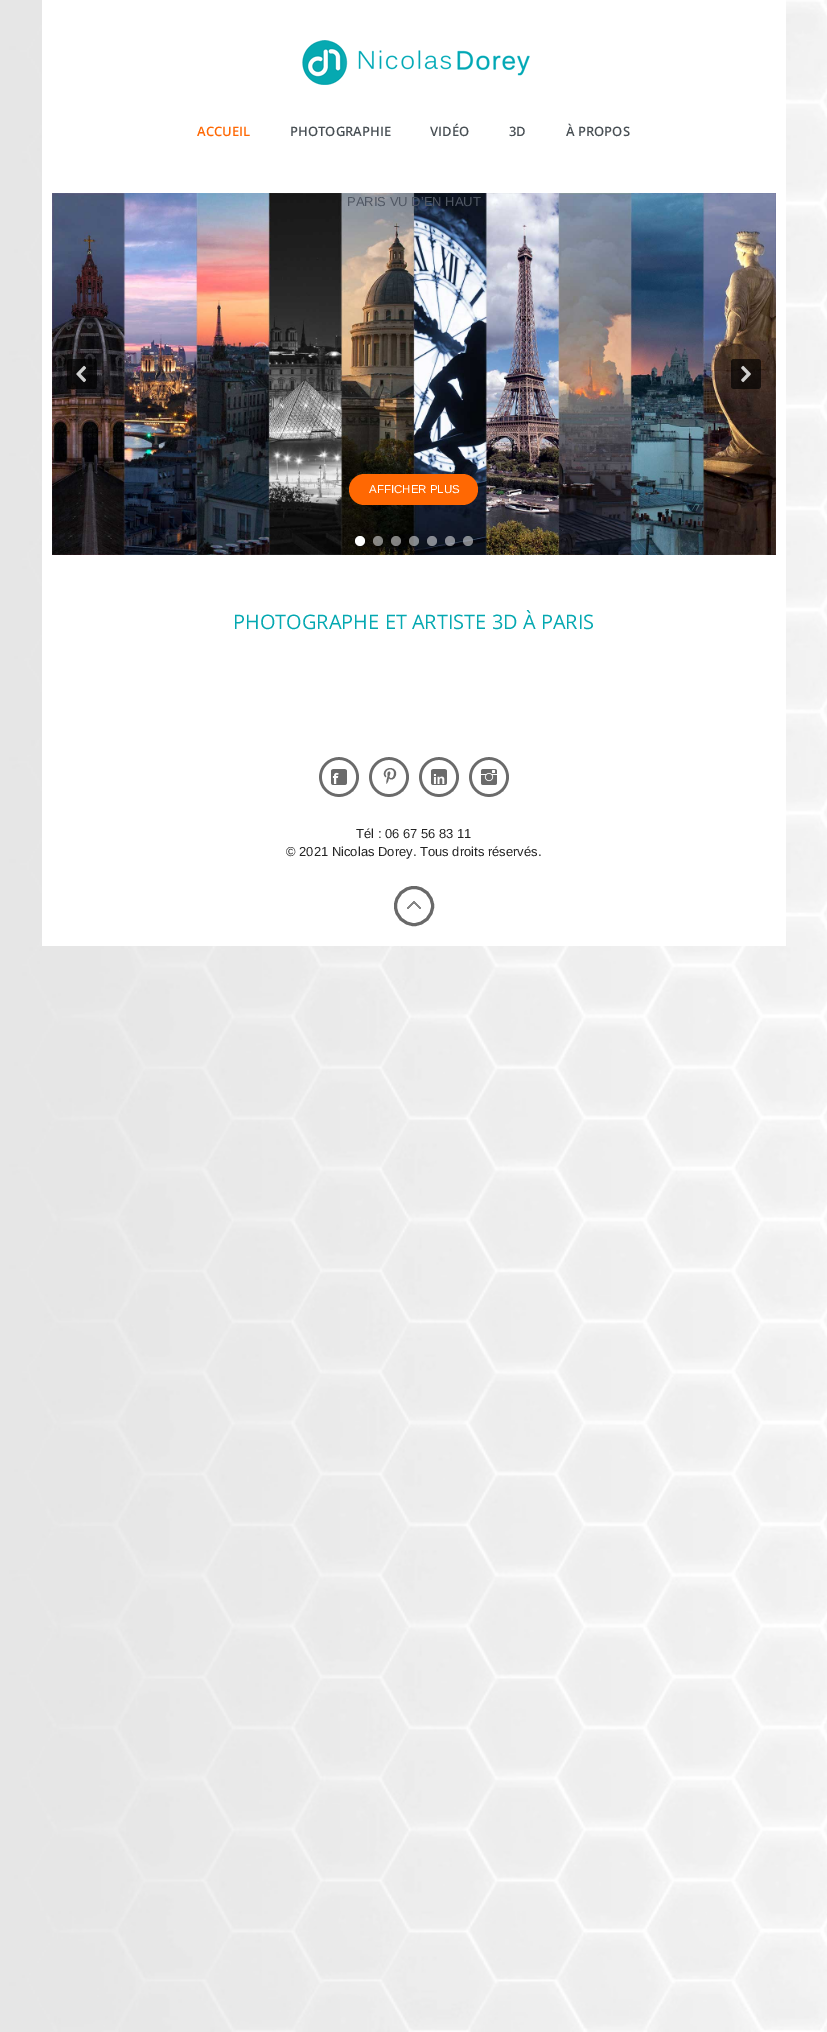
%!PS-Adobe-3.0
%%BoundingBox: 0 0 827 2032
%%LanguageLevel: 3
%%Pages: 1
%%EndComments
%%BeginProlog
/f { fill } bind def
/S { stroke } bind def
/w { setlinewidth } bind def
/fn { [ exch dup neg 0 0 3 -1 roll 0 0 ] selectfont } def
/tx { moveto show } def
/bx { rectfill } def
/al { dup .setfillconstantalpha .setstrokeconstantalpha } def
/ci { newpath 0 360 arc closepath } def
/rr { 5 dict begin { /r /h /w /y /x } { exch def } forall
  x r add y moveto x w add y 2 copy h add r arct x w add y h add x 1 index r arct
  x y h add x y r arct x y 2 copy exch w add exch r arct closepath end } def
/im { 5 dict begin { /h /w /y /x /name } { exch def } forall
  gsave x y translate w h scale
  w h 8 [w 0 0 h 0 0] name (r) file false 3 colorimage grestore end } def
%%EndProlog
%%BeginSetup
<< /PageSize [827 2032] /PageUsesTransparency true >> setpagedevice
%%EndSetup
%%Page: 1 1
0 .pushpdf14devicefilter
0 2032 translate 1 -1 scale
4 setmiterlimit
1 setgray
0 0 827 2032 bx
(image1.raw) 0 0 827 2032 im
42 0 744 946 bx
(image0.raw) 302 40 228 45 im
/OpenSans-SemiBold 13 fn
1 0.408 0.012 setrgbcolor
(ACCUEIL) 197 136 tx
0.282 0.31 0.329 setrgbcolor
(PHOTOGRAPHIE) 290 136 tx
(VIDÉO) 430 136 tx
(3D) 509 136 tx
(À PROPOS) 566 136 tx
(image3.raw) 52 193 724 362 im
0.67 al
0 setgray
67 359 30 30 3 rr f
1 al
(image2.raw) 76 365 10 18 im
/LiberationSans-Regular 13 fn
0.314 0.341 0.388 setrgbcolor
(PARIS VU D’EN HAUT) 347 206 tx
1 0.408 0.012 setrgbcolor
349 474 129 31 15.5 rr f
/LiberationSans-Regular 11.5 fn
1 setgray
(AFFICHER PLUS) 369 493 tx
0.67 al
0 setgray
731 359 30 30 3 rr f
1 al
(image4.raw) 741 365 10 18 im
1 setgray
360 541 5 ci f
0.5 al
378 541 5 ci f
396 541 5 ci f
414 541 5 ci f
432 541 5 ci f
450 541 5 ci f
468 541 5 ci f
/OpenSans-Regular 20 fn
1 al
0.016 0.659 0.694 setrgbcolor
(PHOTOGRAPHE ET ARTISTE 3D À PARIS) 233 629 tx
(image5.raw) 319 757 40 40 im
(image6.raw) 369 757 40 40 im
(image7.raw) 419 757 40 40 im
(image8.raw) 469 757 40 40 im
/LiberationSans-Regular 13 fn
0.137 setgray
(Tél : 06 67 56 83 11) 356 838 tx
(© 2021 Nicolas Dorey. Tous droits réservés.) 286 856 tx
0.412 setgray
3 w
414 906 18.5 ci S
(image9.raw) 407 901 14 8 im
.poppdf14devicefilter showpage
%%EOF
